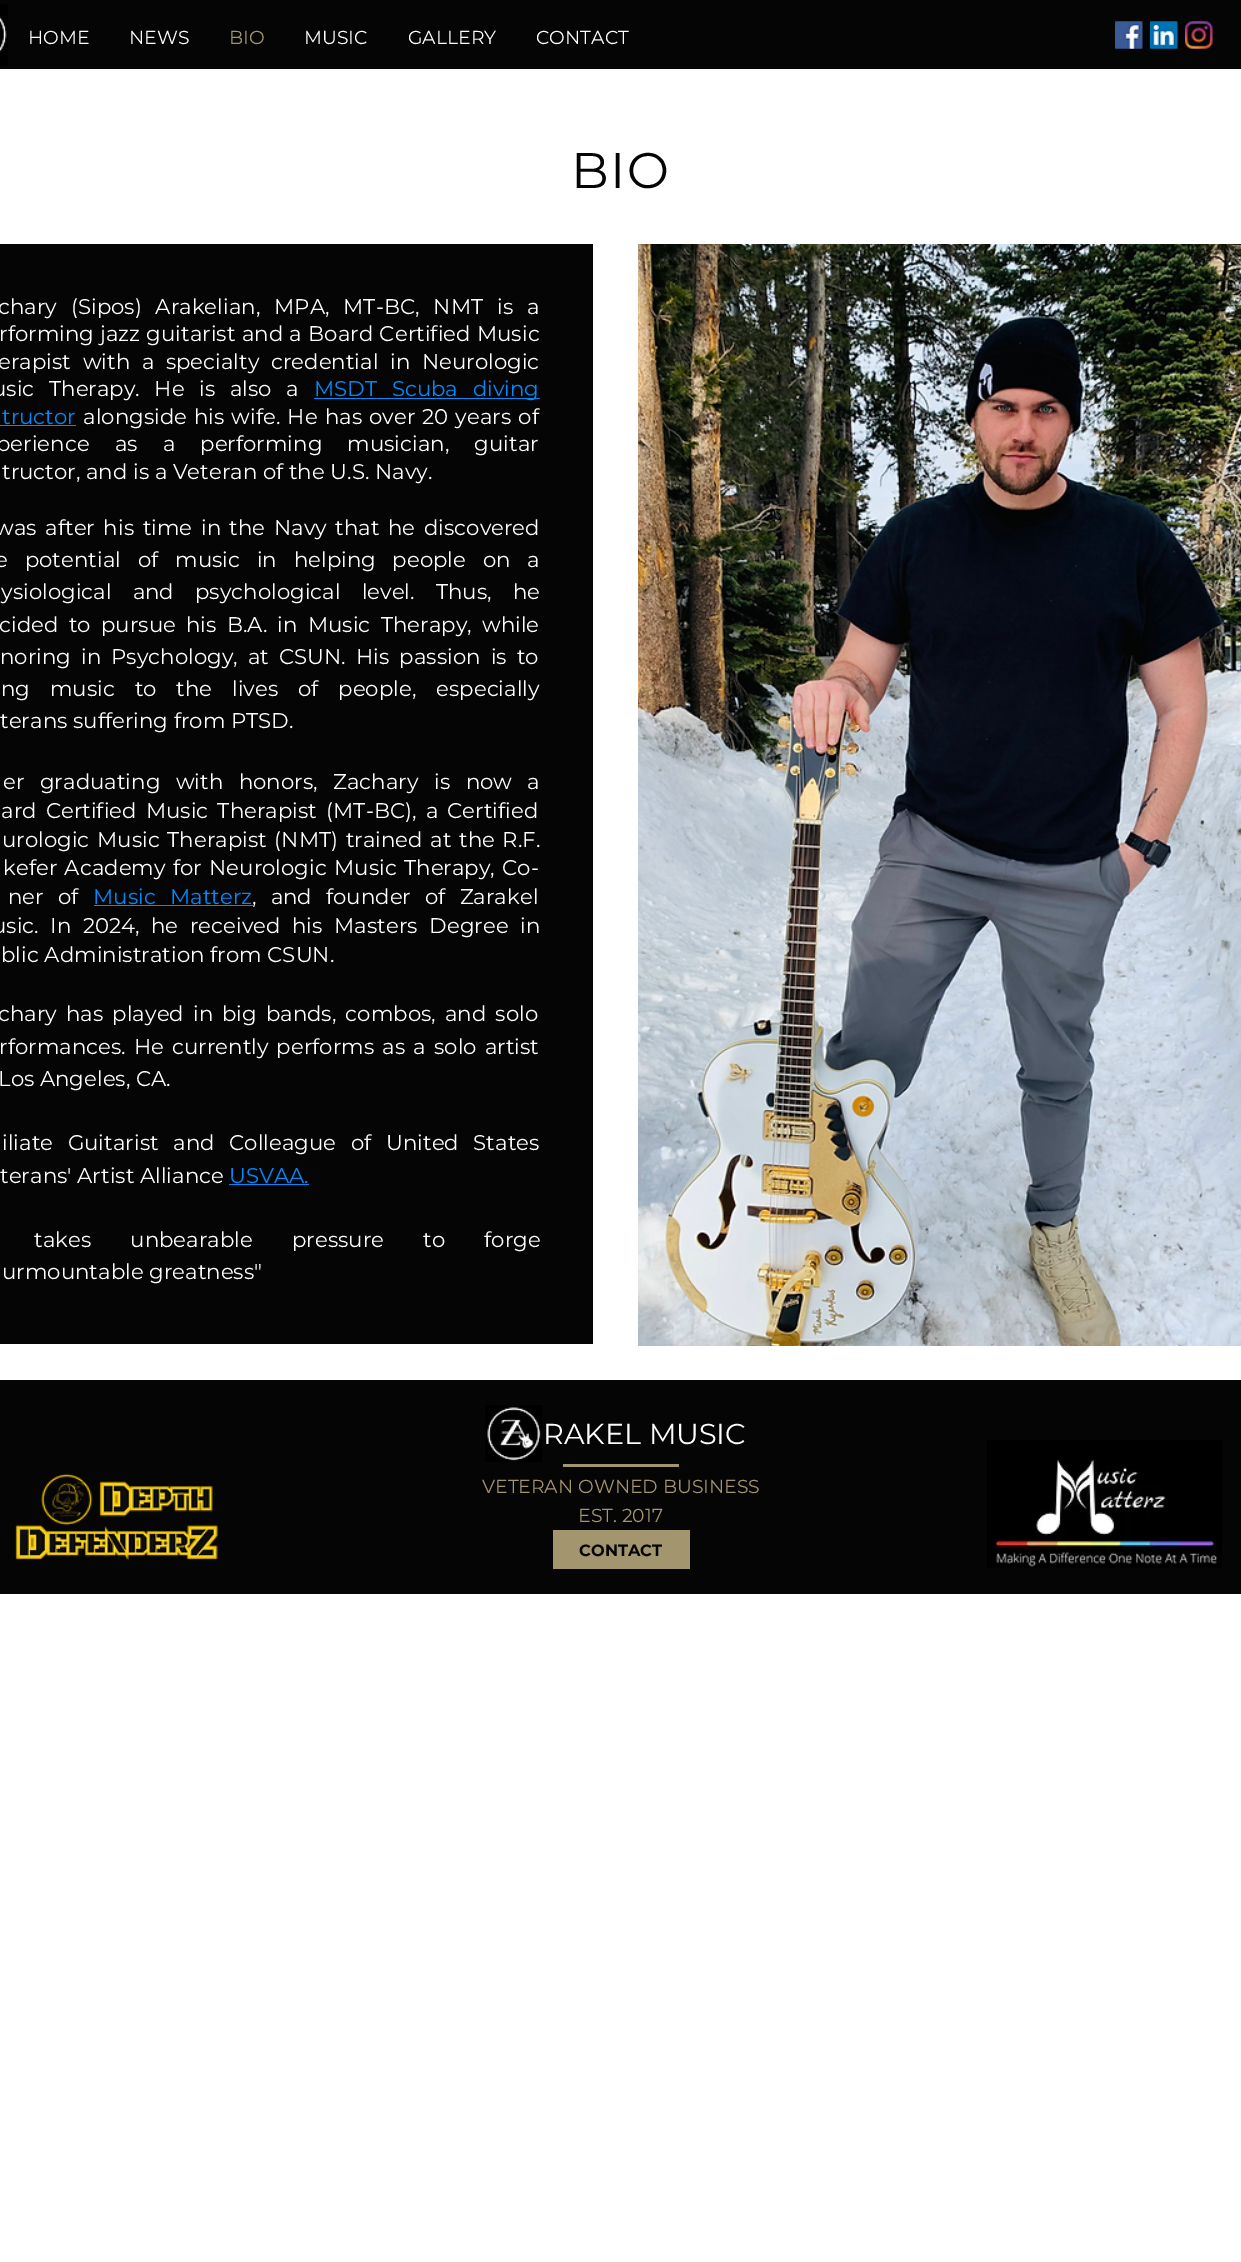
%!PS-Adobe-3.0
%%BoundingBox: 0 0 1241 2262
%%LanguageLevel: 3
%%Pages: 1
%%EndComments
%%BeginProlog
/m { moveto } bind def
/fn { [ exch dup neg 0 0 3 -1 roll 0 0 ] selectfont } def
/tx { moveto show } def
/bx { rectfill } def
/im { 5 dict begin { /h /w /y /x /name } { exch def } forall
  gsave x y translate w h scale
  w h 8 [w 0 0 h 0 0] name (r) file false 3 colorimage grestore end } def
%%EndProlog
%%BeginSetup
<< /PageSize [1241 2262] >> setpagedevice
%%EndSetup
%%Page: 1 1
0 2262 translate 1 -1 scale
4 setmiterlimit
1 setgray
0 0 1241 2262 bx
0.02 setgray
0 0 1241 69 bx
(image0.raw) 0 4 8 61 im
/Montserrat-Regular 18.75 fn
1 setgray
(HOME) 28 44 tx
(NEWS) 129 44 tx
0.639 0.584 0.427 setrgbcolor
(BIO) 229 44 tx
1 setgray
(MUSIC) 304 44 tx
(GALLERY) 408 44 tx
(CONTACT) 536 44 tx
(image1.raw) 1115 21 28 28 im
(image2.raw) 1150 21 28 28 im
(image3.raw) 1185 21 28 28 im
/Montserrat-Regular 50 fn
0.02 setgray
571 188 m 1.5 0 (BIO) ashow
0 244 593 1100 bx
/Montserrat-Regular 21.25 fn
1 setgray
-2 314 m 8.25 0 32 (chary \(Sipos\) Arakelian, MPA, MT-BC, NMT is a) widthshow
-1 341 m 0.75 0 32 (rforming jazz guitarist and a Board Certified Music) widthshow
-2 369 m 6 0 32 (erapist with a specialty credential in Neurologic) widthshow
-8 396 m 9 0 32 (usic Therapy. He is also a) widthshow
0 0.541 0.988 setrgbcolor
314 398 226 1 bx
314 396 m 9 0 32 (MSDT Scuba diving) widthshow
(tructor) 2 424 tx
0 425 76 1 bx
1 setgray
83 424 m 1.5 0 32 (alongside his wife. He has over 20 years of) widthshow
-4 451 m 19.5 0 32 (perience as a performing musician, guitar) widthshow
(tructor, and is a Veteran of the U.S. Navy.) 2 479 tx
-5 535 m 3 0 32 (was after his time in the Navy that he discovered) widthshow
-5 567 m 11.25 0 32 (e potential of music in helping people on a) widthshow
1 599 m 15.5 0 32 (ysiological and psychological level. Thus, he) widthshow
-1 632 m 4.75 0 32 (cided to pursue his B.A. in Music Therapy, while) widthshow
0 664 m 4.5 0 32 (noring in Psychology, at CSUN. His passion is to) widthshow
1 696 m 14.25 0 32 (ng music to the lives of people, especially) widthshow
(terans suffering from PTSD.) 0 728 tx
3 789 m 10 0 32 (er graduating with honors, Zachary is now a) widthshow
1 818 m 3.5 0 32 (ard Certified Music Therapist \(MT-BC\), a Certified) widthshow
2 847 m 2 0 32 (urologic Music Therapist \(NMT\) trained at the R.F.) widthshow
3 875 m 1.75 0 32 (kefer Academy for Neurologic Music Therapy, Co-) widthshow
8 904 m 8.5 0 32 (ner of) widthshow
0 0.541 0.988 setrgbcolor
93 904 m 8.5 0 32 (Music Matterz) widthshow
94 905 159 1 bx
1 setgray
252 904 m 8.5 0 32 (, and founder of Zarakel) widthshow
-8 933 m 6 0 32 (usic. In 2024, he received his Masters Degree in) widthshow
(blic Administration from CSUN.) 1 962 tx
-2 1021 m 3.5 0 32 (chary has played in big bands, combos, and solo) widthshow
-1 1054 m 2.5 0 32 (rformances. He) widthshow
172 1054 m 2.5 0 32 (currently performs as a solo artist) widthshow
(Los Angeles, CA.) -2 1086 tx
2 1150 m 9 0 32 (iliate Guitarist and Colleague of) widthshow
386 1150 m 9 0 32 (United States) widthshow
(terans' Artist Alliance) 0 1183 tx
0 0.541 0.988 setrgbcolor
(USVAA.) 229 1183 tx
229 1184 80 1 bx
1 setgray
34 1247 m 33.5 0 32 (takes unbearable pressure to forge) widthshow
(urmountable greatness") 2 1279 tx
(image4.raw) 638 244 603 1102 im
0.02 setgray
0 1380 1241 214 bx
(image5.raw) 485 1405 57 57 im
/Montserrat-Regular 28.75 fn
1 setgray
(RAKEL MUSIC) 543 1444 tx
0.639 0.584 0.427 setrgbcolor
563 1464 116 3 bx
(image6.raw) 987 1440 235 128 im
(image7.raw) 15 1473 203 87 im
/Montserrat-Regular 18.75 fn
(VETERAN OWNED BUSINESS) 482 1493 tx
(EST. 2017) 578 1522 tx
553 1530 137 39 bx
/Montserrat-Bold 16.25 fn
0.02 setgray
(CONTACT) 579 1556 tx
showpage
%%EOF
